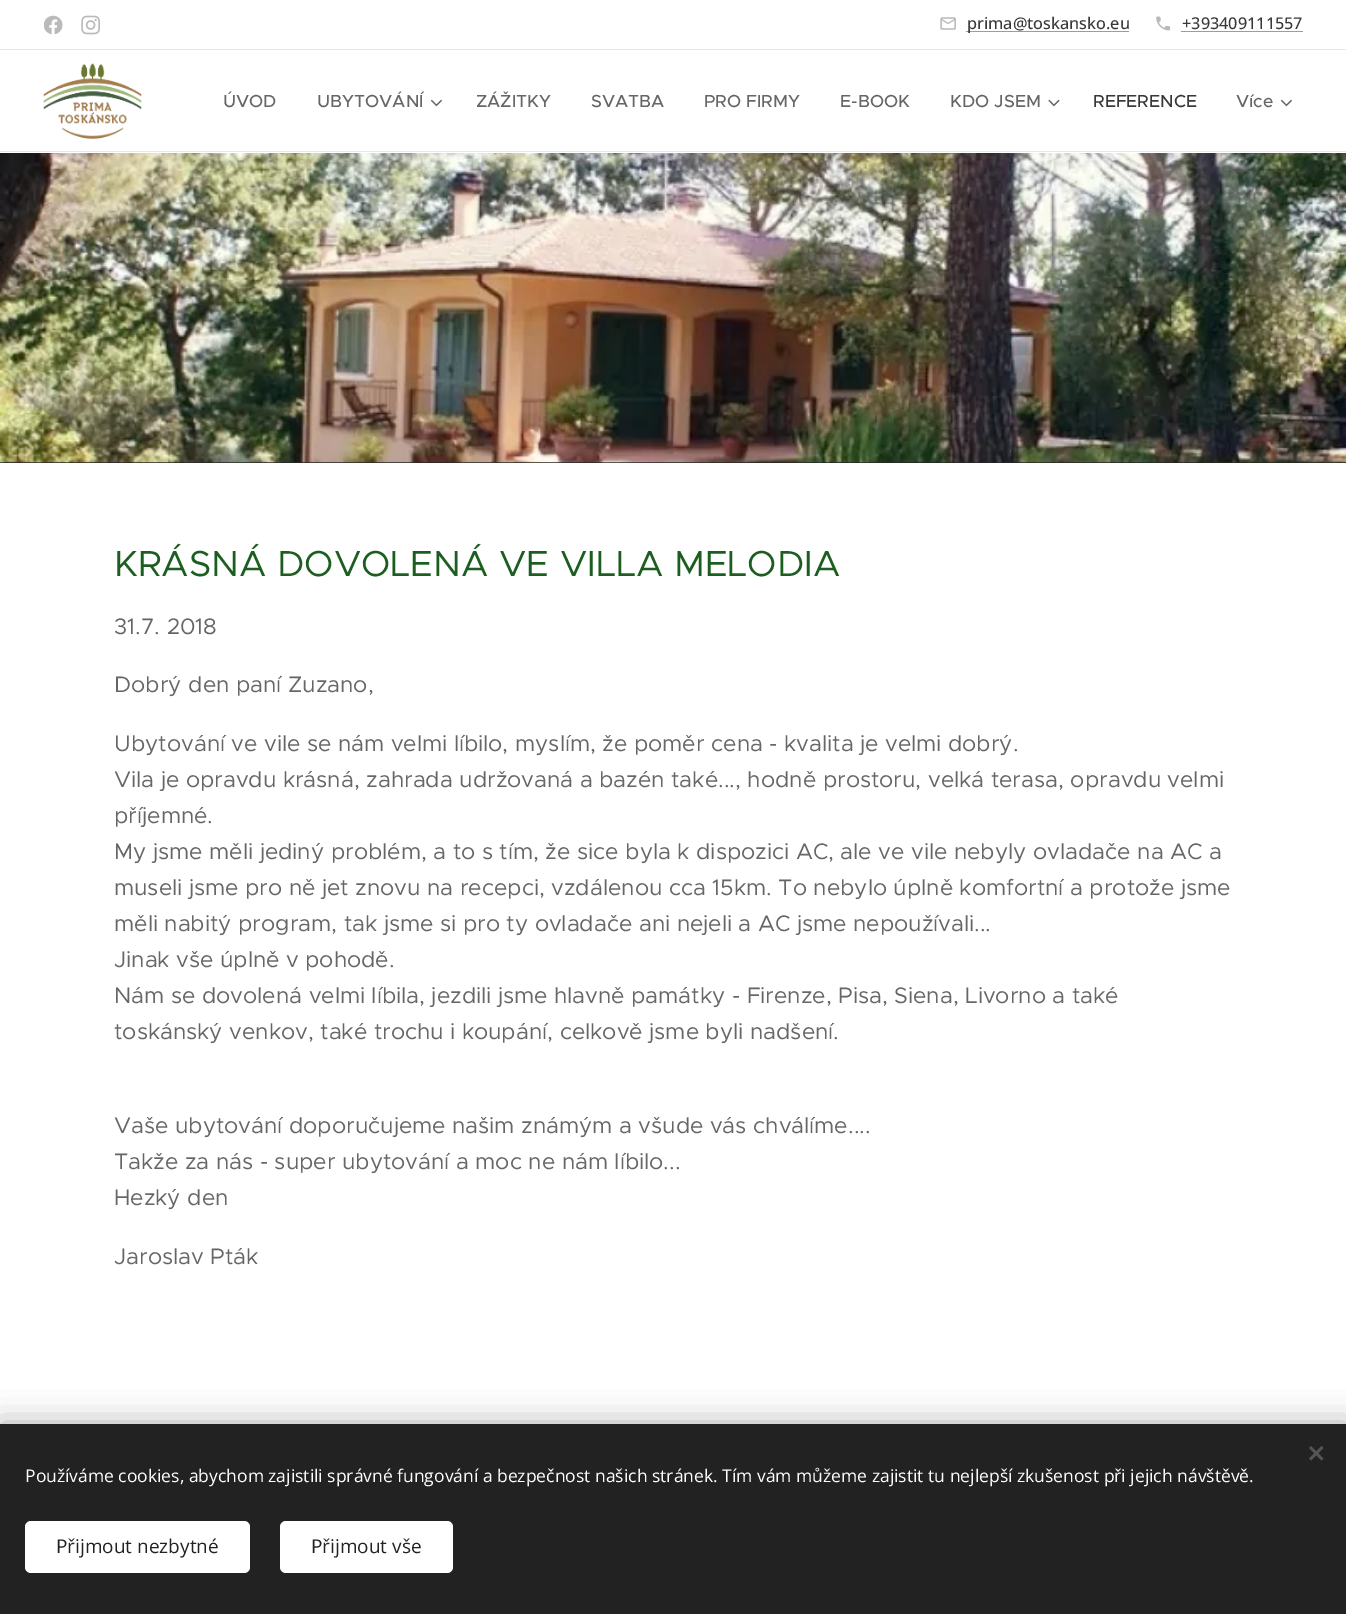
%!PS-Adobe-3.0
%%BoundingBox: 0 0 1346 1614
%%LanguageLevel: 3
%%Pages: 1
%%EndComments
%%BeginProlog
/m { moveto } bind def
/l { lineto } bind def
/h { closepath } bind def
/f { fill } bind def
/fn { [ exch dup neg 0 0 3 -1 roll 0 0 ] selectfont } def
/tx { moveto show } def
/bx { rectfill } def
/al { dup .setfillconstantalpha .setstrokeconstantalpha } def
/rr { 5 dict begin { /r /h /w /y /x } { exch def } forall
  x r add y moveto x w add y 2 copy h add r arct x w add y h add x 1 index r arct
  x y h add x y r arct x y 2 copy exch w add exch r arct closepath end } def
/sh { 12 dict begin { /a /b /q /h /w /y /x } { exch def } forall gsave /was 0 def
  9 -2 -9 { dup b mul 4 div /e exch def 1 sub .425 mul 2.718 exch exp 1 add a .99 .min exch div /now exch def
    1 1 now sub 1 was sub div sub al /was now def
    w h .min e 2 mul add 0 gt { x e sub y e sub w e 2 mul add h e 2 mul add
      q e add b .6 mul add w h .min 2 div e add .min 0 .max rr fill } if } for grestore end } def
/im { 5 dict begin { /h /w /y /x /name } { exch def } forall
  gsave x y translate w h scale
  w h 8 [w 0 0 h 0 0] name (r) file false 3 colorimage grestore end } def
%%EndProlog
%%BeginSetup
<< /PageSize [1346 1614] /PageUsesTransparency true >> setpagedevice
%%EndSetup
%%Page: 1 1
0 .pushpdf14devicefilter
0 1614 translate 1 -1 scale
4 setmiterlimit
1 setgray
0 0 1346 1614 bx
(image0.raw) 44 15 19 20 im
(image1.raw) 81 15 19 20 im
(image2.raw) 940 17 16 13 im
0.612 setgray
966 31 163 1 bx
/OpenSans-Medium 16.25 fn
0.224 setgray
(prima@toskansko.eu) 967 29 tx
(image3.raw) 1156 16 15 15 im
(+393409111557) 1182 29 tx
0.612 setgray
1181 31 122 1 bx
0.91 setgray
0 49 1346 1 bx
(image4.raw) 43 63 99 76 im
/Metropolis-Medium 17.5 fn
0.4 setgray
(ÚVOD) 223 107 tx
(UBYTOVÁNÍ) 317 107 tx
(image5.raw) 430 99 12 8 im
(ZÁŽITKY) 476 107 tx
(SVATBA) 591 107 tx
(PRO FIRMY) 704 107 tx
(E-BOOK) 840 107 tx
(KDO JSEM) 950 107 tx
(image6.raw) 1048 99 12 8 im
0.224 setgray
(REFERENCE) 1093 107 tx
0.4 setgray
(Více) 1236 107 tx
(image5.raw) 1280 99 12 8 im
0.91 setgray
0 151 1346 1 bx
0.153 setgray
0 462 1346 1 bx
(image7.raw) 0 153 1346 310 im
/Metropolis-Regular 36.25 fn
0.106 0.369 0.125 setrgbcolor
(KRÁSNÁ DOVOLENÁ VE VILLA MELODIA) 114 576 tx
/Metropolis-Regular 22.5 fn
0.4 setgray
(31.7. 2018) 114 634 tx
(Dobrý den paní Zuzano,) 114 692 tx
(Ubytování ve vile se nám velmi líbilo, myslím, že poměr cena - kvalita je velmi dobrý.) 114 751 tx
(Vila je opravdu krásná, zahrada udržovaná a bazén také..., hodně prostoru, velká terasa, opravdu velmi) 114 787 tx
(příjemné.) 114 823 tx
(My jsme měli jediný problém, a to s tím, že sice byla k dispozici AC, ale ve vile nebyly ovladače na AC a) 114 859 tx
(museli jsme pro ně jet znovu na recepci, vzdálenou cca 15km. To nebylo úplně komfortní a protože jsme) 114 895 tx
(měli nabitý program, tak jsme si pro ty ovladače ani nejeli a AC jsme nepoužívali...) 114 931 tx
(Jinak vše úplně v pohodě.) 114 967 tx
(Nám se dovolená velmi líbila, jezdili jsme hlavně památky - Firenze, Pisa, Siena, Livorno a také) 114 1003 tx
(toskánský venkov, také trochu i koupání, celkově jsme byli nadšení.) 114 1039 tx
(Vaše ubytování doporučujeme našim známým a všude vás chválíme....) 114 1133 tx
(Takže za nás - super ubytování a moc ne nám líbilo...) 114 1169 tx
(Hezký den) 114 1205 tx
(Jaroslav Pták) 114 1264 tx
0 setgray
0 1424 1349 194 0 15.5 0.33 sh
0.133 setgray
0 1424 1346 190 bx
0.333 setgray
1309 1458.5 m 1321.5 1446 l 1323.5 1448 l 1311 1460.5 l h f
1311 1446 m 1323.5 1458.5 l 1321.5 1460.5 l 1309 1448 l h f
/OpenSans-Regular 17.5 fn
1 setgray
(Používáme cookies, abychom zajistili správné fungování a bezpečnost našich stránek. Tím vám můžeme zajistit tu nejlepší zkušenost při jejich návštěvě.) 25 1482 tx
25 1521 225 52 6 rr f
/OpenSans-Regular 19 fn
0.133 setgray
(Přijmout nezbytné) 56 1553 tx
1 setgray
280 1521 173 52 6 rr f
0.133 setgray
(Přijmout vše) 311 1553 tx
.poppdf14devicefilter showpage
%%EOF
